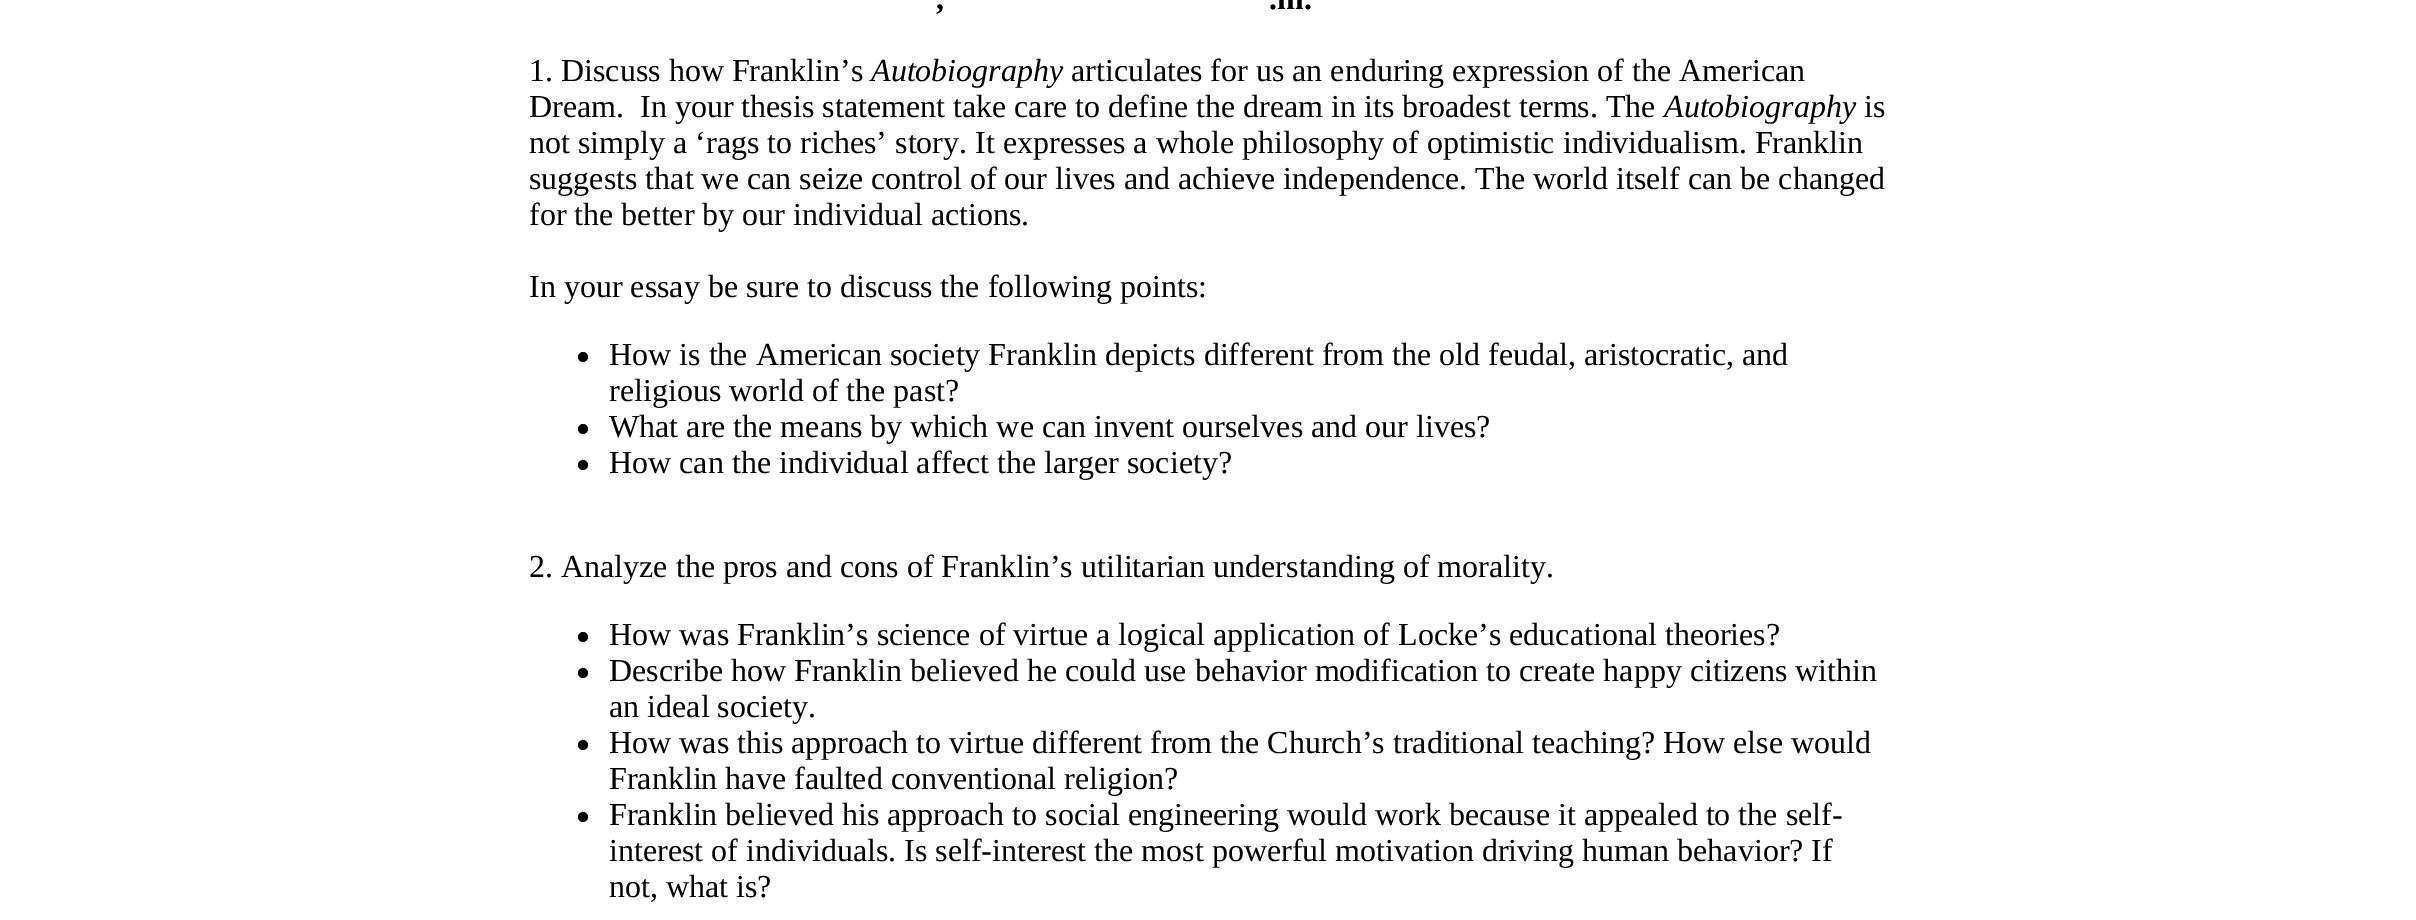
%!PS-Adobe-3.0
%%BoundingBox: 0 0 2416 920
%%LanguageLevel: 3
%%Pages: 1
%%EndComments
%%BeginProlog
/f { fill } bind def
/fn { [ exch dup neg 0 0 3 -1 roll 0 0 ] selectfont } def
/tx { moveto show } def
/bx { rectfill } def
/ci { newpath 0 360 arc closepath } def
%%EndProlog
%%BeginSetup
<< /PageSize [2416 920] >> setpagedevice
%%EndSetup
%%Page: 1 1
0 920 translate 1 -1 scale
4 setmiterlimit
1 setgray
0 0 2416 920 bx
/LiberationSerif-Bold 32 fn
0 setgray
(,) 936 9 tx
(.m.) 1269 9 tx
/LiberationSerif-Regular 32 fn
(1. Discuss how Franklin’s) 529 81 tx
/LiberationSerif-Italic 32 fn
(Autobiography) 871 81 tx
/LiberationSerif-Regular 32 fn
(articulates for us an enduring expression of the American) 1071 81 tx
(Dream.) 529 117 tx
(In your thesis statement take care to define the dream in its broadest terms. The) 640 117 tx
/LiberationSerif-Italic 32 fn
(Autobiography) 1664 117 tx
/LiberationSerif-Regular 32 fn
(is) 1864 117 tx
(not simply a ‘rags to riches’ story. It expresses a whole philosophy of optimistic individualism. Franklin) 529 153 tx
(suggests that we can seize control of our lives and achieve independence. The world itself can be changed) 529 189 tx
(for the better by our individual actions.) 529 225 tx
(In your essay be sure to discuss the following points:) 529 297 tx
583 357 5 ci f
(How is the American society Franklin depicts different from the old feudal, aristocratic, and) 609 365 tx
(religious world of the past?) 609 401 tx
583 429 5 ci f
(What are the means by which we can invent ourselves and our lives?) 609 437 tx
583 465 5 ci f
(How can the individual affect the larger society?) 609 473 tx
(2. Analyze the pros and cons of Franklin’s utilitarian understanding of morality.) 529 577 tx
583 637 5 ci f
(How was Franklin’s science of virtue a logical application of Locke’s educational theories?) 609 645 tx
583 673 5 ci f
(Describe how Franklin believed he could use behavior modification to create happy citizens within) 609 681 tx
(an ideal society.) 609 717 tx
583 745 5 ci f
(How was this approach to virtue different from the Church’s traditional teaching? How else would) 609 753 tx
(Franklin have faulted conventional religion?) 609 789 tx
583 817 5 ci f
(Franklin believed his approach to social engineering would work because it appealed to the self-) 609 825 tx
(interest of individuals. Is self-interest the most powerful motivation driving human behavior? If) 609 861 tx
(not, what is?) 609 897 tx
showpage
%%EOF
